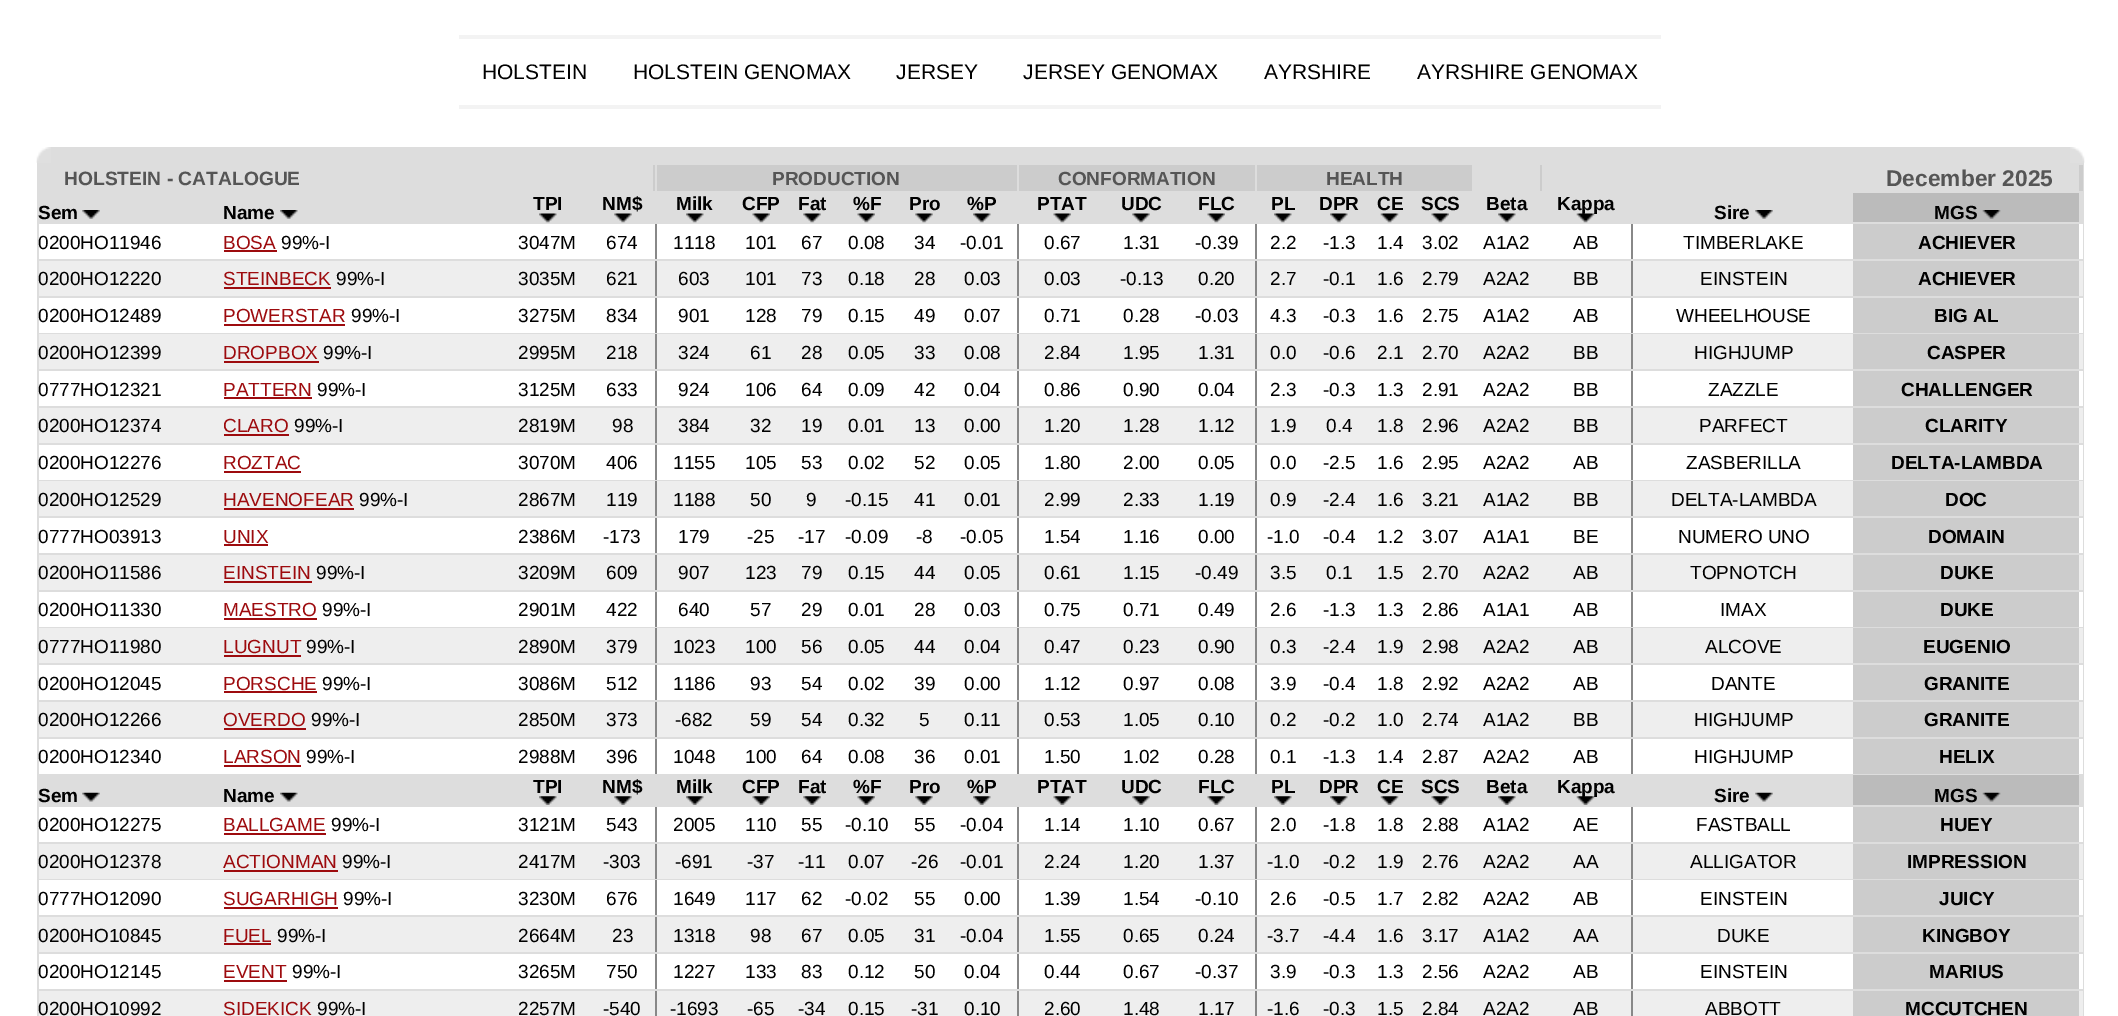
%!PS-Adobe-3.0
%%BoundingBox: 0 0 2118 1016
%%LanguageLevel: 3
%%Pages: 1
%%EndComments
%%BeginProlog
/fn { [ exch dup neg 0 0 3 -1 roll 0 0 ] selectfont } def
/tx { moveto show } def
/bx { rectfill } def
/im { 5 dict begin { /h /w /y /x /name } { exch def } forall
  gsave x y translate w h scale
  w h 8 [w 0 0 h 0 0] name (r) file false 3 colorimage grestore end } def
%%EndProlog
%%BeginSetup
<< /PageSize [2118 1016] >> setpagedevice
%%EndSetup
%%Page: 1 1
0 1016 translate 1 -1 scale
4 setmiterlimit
1 setgray
0 0 2118 1016 bx
0.953 setgray
459 35 1202 4 bx
/LiberationSans-Regular 21 fn
0 setgray
(HOLSTEIN) 482 79 tx
(HOLSTEIN GENOMAX) 633 79 tx
(JERSEY) 896 79 tx
(JERSEY GENOMAX) 1023 79 tx
(AYRSHIRE) 1264 79 tx
(AYRSHIRE GENOMAX) 1417 79 tx
0.953 setgray
459 105 1202 4 bx
0.867 setgray
37 147 2047 869 bx
(image0.raw) 36 147 15 16 im
(image1.raw) 2070 147 15 16 im
0.8 setgray
653 165 1430 26 bx
/LiberationSans-Bold 19.25 fn
0.333 setgray
(HOLSTEIN - CATALOGUE) 64 185 tx
0.867 setgray
655 165 2 26 bx
/LiberationSans-Bold 19 fn
0.333 setgray
(PRODUCTION) 772 185 tx
0.867 setgray
1017 165 2 26 bx
0.333 setgray
(CONFORMATION) 1058 185 tx
0.867 setgray
1255 165 2 26 bx
0.333 setgray
(HEALTH) 1326 185 tx
0.867 setgray
1472 165 68 26 bx
1542 165 537 26 bx
/LiberationSans-Bold 22.75 fn
0.333 setgray
(December 2025) 1886 186 tx
/LiberationSans-Bold 19 fn
0 setgray
(Sem) 38 219 tx
(image2.raw) 82 210 18 9 im
(Name) 223 219 tx
(image3.raw) 280 210 18 9 im
(TPI) 533 210 tx
(image4.raw) 539 213 18 10 im
(NM$) 602 210 tx
(image5.raw) 614 213 18 10 im
(Milk) 676 210 tx
(image6.raw) 686 213 18 10 im
(CFP) 742 210 tx
(image7.raw) 752 213 18 10 im
(Fat) 798 210 tx
(image8.raw) 803 213 18 10 im
(%F) 853 210 tx
(image9.raw) 857 213 18 10 im
(Pro) 909 210 tx
(image5.raw) 915 213 18 10 im
(%P) 967 210 tx
(image4.raw) 973 213 18 10 im
(PTAT) 1037 210 tx
(image9.raw) 1053 213 18 10 im
(UDC) 1121 210 tx
(image5.raw) 1132 213 18 10 im
(FLC) 1198 210 tx
(image9.raw) 1207 213 18 10 im
(PL) 1271 210 tx
(image6.raw) 1274 213 18 10 im
(DPR) 1319 210 tx
(image4.raw) 1330 213 18 10 im
(CE) 1377 210 tx
(image10.raw) 1380 213 19 10 im
(SCS) 1421 210 tx
(image11.raw) 1431 213 18 10 im
(Beta) 1486 210 tx
(image6.raw) 1498 213 18 10 im
(Kappa) 1557 210 tx
(image12.raw) 1576 213 19 10 im
(Sire) 1714 219 tx
(image2.raw) 1755 210 18 9 im
0.733 setgray
1853 193 226 29 bx
0 setgray
(MGS) 1934 219 tx
(image13.raw) 1982 210 19 9 im
1 setgray
39 224 2044 35 bx
/LiberationSans-Regular 19 fn
0 setgray
(0200HO11946) 38 249 tx
0.616 0.043 0.055 setrgbcolor
(BOSA) 223 249 tx
224 250 53 2 bx
0 setgray
(99%-I) 281 249 tx
(3047M) 518 249 tx
(674) 606 249 tx
0.533 setgray
655 224 2 35 bx
0 setgray
(1118) 673 249 tx
(101) 745 249 tx
(67) 801 249 tx
(0.08) 848 249 tx
(34) 914 249 tx
(-0.01) 960 249 tx
0.533 setgray
1017 224 2 35 bx
0 setgray
(0.67) 1044 249 tx
(1.31) 1123 249 tx
(-0.39) 1195 249 tx
0.533 setgray
1255 224 2 35 bx
0 setgray
(2.2) 1270 249 tx
(-1.3) 1323 249 tx
(1.4) 1377 249 tx
(3.02) 1422 249 tx
(A1A2) 1483 249 tx
(AB) 1573 249 tx
0.533 setgray
1631 224 2 35 bx
0 setgray
(TIMBERLAKE) 1683 249 tx
0.8 setgray
1853 224 226 35 bx
/LiberationSans-Bold 19 fn
0 setgray
(ACHIEVER) 1918 249 tx
0.933 setgray
39 261 2044 35 bx
/LiberationSans-Regular 19 fn
0 setgray
(0200HO12220) 38 285 tx
0.616 0.043 0.055 setrgbcolor
(STEINBECK) 223 285 tx
224 287 107 2 bx
0 setgray
(99%-I) 336 285 tx
(3035M) 518 285 tx
(621) 606 285 tx
0.533 setgray
655 261 2 35 bx
0 setgray
(603) 678 285 tx
(101) 745 285 tx
(73) 801 285 tx
(0.18) 848 285 tx
(28) 914 285 tx
(0.03) 964 285 tx
0.533 setgray
1017 261 2 35 bx
0 setgray
(0.03) 1044 285 tx
(-0.13) 1120 285 tx
(0.20) 1198 285 tx
0.533 setgray
1255 261 2 35 bx
0 setgray
(2.7) 1270 285 tx
(-0.1) 1323 285 tx
(1.6) 1377 285 tx
(2.79) 1422 285 tx
(A2A2) 1483 285 tx
(BB) 1573 285 tx
0.533 setgray
1631 261 2 35 bx
0 setgray
(EINSTEIN) 1700 285 tx
0.8 setgray
1853 261 226 35 bx
/LiberationSans-Bold 19 fn
0 setgray
(ACHIEVER) 1918 285 tx
1 setgray
39 298 2044 35 bx
/LiberationSans-Regular 19 fn
0 setgray
(0200HO12489) 38 322 tx
0.616 0.043 0.055 setrgbcolor
(POWERSTAR) 223 322 tx
224 324 121 2 bx
0 setgray
(99%-I) 351 322 tx
(3275M) 518 322 tx
(834) 606 322 tx
0.533 setgray
655 298 2 35 bx
0 setgray
(901) 678 322 tx
(128) 745 322 tx
(79) 801 322 tx
(0.15) 848 322 tx
(49) 914 322 tx
(0.07) 964 322 tx
0.533 setgray
1017 298 2 35 bx
0 setgray
(0.71) 1044 322 tx
(0.28) 1123 322 tx
(-0.03) 1195 322 tx
0.533 setgray
1255 298 2 35 bx
0 setgray
(4.3) 1270 322 tx
(-0.3) 1323 322 tx
(1.6) 1377 322 tx
(2.75) 1422 322 tx
(A1A2) 1483 322 tx
(AB) 1573 322 tx
0.533 setgray
1631 298 2 35 bx
0 setgray
(WHEELHOUSE) 1676 322 tx
0.8 setgray
1853 298 226 35 bx
/LiberationSans-Bold 19 fn
0 setgray
(BIG AL) 1934 322 tx
0.933 setgray
39 334 2044 35 bx
/LiberationSans-Regular 19 fn
0 setgray
(0200HO12399) 38 359 tx
0.616 0.043 0.055 setrgbcolor
(DROPBOX) 223 359 tx
224 361 95 2 bx
0 setgray
(99%-I) 323 359 tx
(2995M) 518 359 tx
(218) 606 359 tx
0.533 setgray
655 334 2 35 bx
0 setgray
(324) 678 359 tx
(61) 750 359 tx
(28) 801 359 tx
(0.05) 848 359 tx
(33) 914 359 tx
(0.08) 964 359 tx
0.533 setgray
1017 334 2 35 bx
0 setgray
(2.84) 1044 359 tx
(1.95) 1123 359 tx
(1.31) 1198 359 tx
0.533 setgray
1255 334 2 35 bx
0 setgray
(0.0) 1270 359 tx
(-0.6) 1323 359 tx
(2.1) 1377 359 tx
(2.70) 1422 359 tx
(A2A2) 1483 359 tx
(BB) 1573 359 tx
0.533 setgray
1631 334 2 35 bx
0 setgray
(HIGHJUMP) 1694 359 tx
0.8 setgray
1853 334 226 35 bx
/LiberationSans-Bold 19 fn
0 setgray
(CASPER) 1927 359 tx
1 setgray
39 371 2044 35 bx
/LiberationSans-Regular 19 fn
0 setgray
(0777HO12321) 38 396 tx
0.616 0.043 0.055 setrgbcolor
(PATTERN) 223 396 tx
224 397 88 2 bx
0 setgray
(99%-I) 317 396 tx
(3125M) 518 396 tx
(633) 606 396 tx
0.533 setgray
655 371 2 35 bx
0 setgray
(924) 678 396 tx
(106) 745 396 tx
(64) 801 396 tx
(0.09) 848 396 tx
(42) 914 396 tx
(0.04) 964 396 tx
0.533 setgray
1017 371 2 35 bx
0 setgray
(0.86) 1044 396 tx
(0.90) 1123 396 tx
(0.04) 1198 396 tx
0.533 setgray
1255 371 2 35 bx
0 setgray
(2.3) 1270 396 tx
(-0.3) 1323 396 tx
(1.3) 1377 396 tx
(2.91) 1422 396 tx
(A2A2) 1483 396 tx
(BB) 1573 396 tx
0.533 setgray
1631 371 2 35 bx
0 setgray
(ZAZZLE) 1708 396 tx
0.8 setgray
1853 371 226 35 bx
/LiberationSans-Bold 19 fn
0 setgray
(CHALLENGER) 1901 396 tx
0.933 setgray
39 408 2044 35 bx
/LiberationSans-Regular 19 fn
0 setgray
(0200HO12374) 38 432 tx
0.616 0.043 0.055 setrgbcolor
(CLARO) 223 432 tx
224 434 65 2 bx
0 setgray
(99%-I) 294 432 tx
(2819M) 518 432 tx
(98) 612 432 tx
0.533 setgray
655 408 2 35 bx
0 setgray
(384) 678 432 tx
(32) 750 432 tx
(19) 801 432 tx
(0.01) 848 432 tx
(13) 914 432 tx
(0.00) 964 432 tx
0.533 setgray
1017 408 2 35 bx
0 setgray
(1.20) 1044 432 tx
(1.28) 1123 432 tx
(1.12) 1198 432 tx
0.533 setgray
1255 408 2 35 bx
0 setgray
(1.9) 1270 432 tx
(0.4) 1326 432 tx
(1.8) 1377 432 tx
(2.96) 1422 432 tx
(A2A2) 1483 432 tx
(BB) 1573 432 tx
0.533 setgray
1631 408 2 35 bx
0 setgray
(PARFECT) 1699 432 tx
0.8 setgray
1853 408 226 35 bx
/LiberationSans-Bold 19 fn
0 setgray
(CLARITY) 1925 432 tx
1 setgray
39 445 2044 35 bx
/LiberationSans-Regular 19 fn
0 setgray
(0200HO12276) 38 469 tx
0.616 0.043 0.055 setrgbcolor
(ROZTAC) 223 469 tx
224 471 77 2 bx
0 setgray
(3070M) 518 469 tx
(406) 606 469 tx
0.533 setgray
655 445 2 35 bx
0 setgray
(1155) 673 469 tx
(105) 745 469 tx
(53) 801 469 tx
(0.02) 848 469 tx
(52) 914 469 tx
(0.05) 964 469 tx
0.533 setgray
1017 445 2 35 bx
0 setgray
(1.80) 1044 469 tx
(2.00) 1123 469 tx
(0.05) 1198 469 tx
0.533 setgray
1255 445 2 35 bx
0 setgray
(0.0) 1270 469 tx
(-2.5) 1323 469 tx
(1.6) 1377 469 tx
(2.95) 1422 469 tx
(A2A2) 1483 469 tx
(AB) 1573 469 tx
0.533 setgray
1631 445 2 35 bx
0 setgray
(ZASBERILLA) 1686 469 tx
0.8 setgray
1853 445 226 35 bx
/LiberationSans-Bold 19 fn
0 setgray
(DELTA-LAMBDA) 1891 469 tx
0.933 setgray
39 481 2044 35 bx
/LiberationSans-Regular 19 fn
0 setgray
(0200HO12529) 38 506 tx
0.616 0.043 0.055 setrgbcolor
(HAVENOFEAR) 223 506 tx
224 508 130 2 bx
0 setgray
(99%-I) 359 506 tx
(2867M) 518 506 tx
(119) 606 506 tx
0.533 setgray
655 481 2 35 bx
0 setgray
(1188) 673 506 tx
(50) 750 506 tx
(9) 806 506 tx
(-0.15) 845 506 tx
(41) 914 506 tx
(0.01) 964 506 tx
0.533 setgray
1017 481 2 35 bx
0 setgray
(2.99) 1044 506 tx
(2.33) 1123 506 tx
(1.19) 1198 506 tx
0.533 setgray
1255 481 2 35 bx
0 setgray
(0.9) 1270 506 tx
(-2.4) 1323 506 tx
(1.6) 1377 506 tx
(3.21) 1422 506 tx
(A1A2) 1483 506 tx
(BB) 1573 506 tx
0.533 setgray
1631 481 2 35 bx
0 setgray
(DELTA-LAMBDA) 1671 506 tx
0.8 setgray
1853 481 226 35 bx
/LiberationSans-Bold 19 fn
0 setgray
(DOC) 1945 506 tx
1 setgray
39 518 2044 35 bx
/LiberationSans-Regular 19 fn
0 setgray
(0777HO03913) 38 543 tx
0.616 0.043 0.055 setrgbcolor
(UNIX) 223 543 tx
224 544 44 2 bx
0 setgray
(2386M) 518 543 tx
(-173) 603 543 tx
0.533 setgray
655 518 2 35 bx
0 setgray
(179) 678 543 tx
(-25) 747 543 tx
(-17) 798 543 tx
(-0.09) 845 543 tx
(-8) 916 543 tx
(-0.05) 960 543 tx
0.533 setgray
1017 518 2 35 bx
0 setgray
(1.54) 1044 543 tx
(1.16) 1123 543 tx
(0.00) 1198 543 tx
0.533 setgray
1255 518 2 35 bx
0 setgray
(-1.0) 1267 543 tx
(-0.4) 1323 543 tx
(1.2) 1377 543 tx
(3.07) 1422 543 tx
(A1A1) 1483 543 tx
(BE) 1573 543 tx
0.533 setgray
1631 518 2 35 bx
0 setgray
(NUMERO UNO) 1678 543 tx
0.8 setgray
1853 518 226 35 bx
/LiberationSans-Bold 19 fn
0 setgray
(DOMAIN) 1928 543 tx
0.933 setgray
39 555 2044 35 bx
/LiberationSans-Regular 19 fn
0 setgray
(0200HO11586) 38 579 tx
0.616 0.043 0.055 setrgbcolor
(EINSTEIN) 223 579 tx
224 581 88 2 bx
0 setgray
(99%-I) 316 579 tx
(3209M) 518 579 tx
(609) 606 579 tx
0.533 setgray
655 555 2 35 bx
0 setgray
(907) 678 579 tx
(123) 745 579 tx
(79) 801 579 tx
(0.15) 848 579 tx
(44) 914 579 tx
(0.05) 964 579 tx
0.533 setgray
1017 555 2 35 bx
0 setgray
(0.61) 1044 579 tx
(1.15) 1123 579 tx
(-0.49) 1195 579 tx
0.533 setgray
1255 555 2 35 bx
0 setgray
(3.5) 1270 579 tx
(0.1) 1326 579 tx
(1.5) 1377 579 tx
(2.70) 1422 579 tx
(A2A2) 1483 579 tx
(AB) 1573 579 tx
0.533 setgray
1631 555 2 35 bx
0 setgray
(TOPNOTCH) 1690 579 tx
0.8 setgray
1853 555 226 35 bx
/LiberationSans-Bold 19 fn
0 setgray
(DUKE) 1940 579 tx
1 setgray
39 592 2044 35 bx
/LiberationSans-Regular 19 fn
0 setgray
(0200HO11330) 38 616 tx
0.616 0.043 0.055 setrgbcolor
(MAESTRO) 223 616 tx
224 618 93 2 bx
0 setgray
(99%-I) 322 616 tx
(2901M) 518 616 tx
(422) 606 616 tx
0.533 setgray
655 592 2 35 bx
0 setgray
(640) 678 616 tx
(57) 750 616 tx
(29) 801 616 tx
(0.01) 848 616 tx
(28) 914 616 tx
(0.03) 964 616 tx
0.533 setgray
1017 592 2 35 bx
0 setgray
(0.75) 1044 616 tx
(0.71) 1123 616 tx
(0.49) 1198 616 tx
0.533 setgray
1255 592 2 35 bx
0 setgray
(2.6) 1270 616 tx
(-1.3) 1323 616 tx
(1.3) 1377 616 tx
(2.86) 1422 616 tx
(A1A1) 1483 616 tx
(AB) 1573 616 tx
0.533 setgray
1631 592 2 35 bx
0 setgray
(IMAX) 1720 616 tx
0.8 setgray
1853 592 226 35 bx
/LiberationSans-Bold 19 fn
0 setgray
(DUKE) 1940 616 tx
0.933 setgray
39 628 2044 35 bx
/LiberationSans-Regular 19 fn
0 setgray
(0777HO11980) 38 653 tx
0.616 0.043 0.055 setrgbcolor
(LUGNUT) 223 653 tx
224 655 77 2 bx
0 setgray
(99%-I) 306 653 tx
(2890M) 518 653 tx
(379) 606 653 tx
0.533 setgray
655 628 2 35 bx
0 setgray
(1023) 673 653 tx
(100) 745 653 tx
(56) 801 653 tx
(0.05) 848 653 tx
(44) 914 653 tx
(0.04) 964 653 tx
0.533 setgray
1017 628 2 35 bx
0 setgray
(0.47) 1044 653 tx
(0.23) 1123 653 tx
(0.90) 1198 653 tx
0.533 setgray
1255 628 2 35 bx
0 setgray
(0.3) 1270 653 tx
(-2.4) 1323 653 tx
(1.9) 1377 653 tx
(2.98) 1422 653 tx
(A2A2) 1483 653 tx
(AB) 1573 653 tx
0.533 setgray
1631 628 2 35 bx
0 setgray
(ALCOVE) 1705 653 tx
0.8 setgray
1853 628 226 35 bx
/LiberationSans-Bold 19 fn
0 setgray
(EUGENIO) 1923 653 tx
1 setgray
39 665 2044 35 bx
/LiberationSans-Regular 19 fn
0 setgray
(0200HO12045) 38 690 tx
0.616 0.043 0.055 setrgbcolor
(PORSCHE) 223 690 tx
224 691 93 2 bx
0 setgray
(99%-I) 322 690 tx
(3086M) 518 690 tx
(512) 606 690 tx
0.533 setgray
655 665 2 35 bx
0 setgray
(1186) 673 690 tx
(93) 750 690 tx
(54) 801 690 tx
(0.02) 848 690 tx
(39) 914 690 tx
(0.00) 964 690 tx
0.533 setgray
1017 665 2 35 bx
0 setgray
(1.12) 1044 690 tx
(0.97) 1123 690 tx
(0.08) 1198 690 tx
0.533 setgray
1255 665 2 35 bx
0 setgray
(3.9) 1270 690 tx
(-0.4) 1323 690 tx
(1.8) 1377 690 tx
(2.92) 1422 690 tx
(A2A2) 1483 690 tx
(AB) 1573 690 tx
0.533 setgray
1631 665 2 35 bx
0 setgray
(DANTE) 1711 690 tx
0.8 setgray
1853 665 226 35 bx
/LiberationSans-Bold 19 fn
0 setgray
(GRANITE) 1924 690 tx
0.933 setgray
39 702 2044 35 bx
/LiberationSans-Regular 19 fn
0 setgray
(0200HO12266) 38 726 tx
0.616 0.043 0.055 setrgbcolor
(OVERDO) 223 726 tx
224 728 82 2 bx
0 setgray
(99%-I) 311 726 tx
(2850M) 518 726 tx
(373) 606 726 tx
0.533 setgray
655 702 2 35 bx
0 setgray
(-682) 675 726 tx
(59) 750 726 tx
(54) 801 726 tx
(0.32) 848 726 tx
(5) 919 726 tx
(0.11) 964 726 tx
0.533 setgray
1017 702 2 35 bx
0 setgray
(0.53) 1044 726 tx
(1.05) 1123 726 tx
(0.10) 1198 726 tx
0.533 setgray
1255 702 2 35 bx
0 setgray
(0.2) 1270 726 tx
(-0.2) 1323 726 tx
(1.0) 1377 726 tx
(2.74) 1422 726 tx
(A1A2) 1483 726 tx
(BB) 1573 726 tx
0.533 setgray
1631 702 2 35 bx
0 setgray
(HIGHJUMP) 1694 726 tx
0.8 setgray
1853 702 226 35 bx
/LiberationSans-Bold 19 fn
0 setgray
(GRANITE) 1924 726 tx
1 setgray
39 739 2044 35 bx
/LiberationSans-Regular 19 fn
0 setgray
(0200HO12340) 38 763 tx
0.616 0.043 0.055 setrgbcolor
(LARSON) 223 763 tx
224 765 77 2 bx
0 setgray
(99%-I) 306 763 tx
(2988M) 518 763 tx
(396) 606 763 tx
0.533 setgray
655 739 2 35 bx
0 setgray
(1048) 673 763 tx
(100) 745 763 tx
(64) 801 763 tx
(0.08) 848 763 tx
(36) 914 763 tx
(0.01) 964 763 tx
0.533 setgray
1017 739 2 35 bx
0 setgray
(1.50) 1044 763 tx
(1.02) 1123 763 tx
(0.28) 1198 763 tx
0.533 setgray
1255 739 2 35 bx
0 setgray
(0.1) 1270 763 tx
(-1.3) 1323 763 tx
(1.4) 1377 763 tx
(2.87) 1422 763 tx
(A2A2) 1483 763 tx
(AB) 1573 763 tx
0.533 setgray
1631 739 2 35 bx
0 setgray
(HIGHJUMP) 1694 763 tx
0.8 setgray
1853 739 226 35 bx
/LiberationSans-Bold 19 fn
0 setgray
(HELIX) 1939 763 tx
(Sem) 38 802 tx
(image14.raw) 82 792 18 10 im
(Name) 223 802 tx
(image15.raw) 280 792 18 10 im
(TPI) 533 793 tx
(image16.raw) 539 796 18 9 im
(NM$) 602 793 tx
(image17.raw) 614 796 18 9 im
(Milk) 676 793 tx
(image18.raw) 686 796 18 9 im
(CFP) 742 793 tx
(image19.raw) 752 796 18 9 im
(Fat) 798 793 tx
(image20.raw) 803 796 18 9 im
(%F) 853 793 tx
(image21.raw) 857 796 18 9 im
(Pro) 909 793 tx
(image17.raw) 915 796 18 9 im
(%P) 967 793 tx
(image16.raw) 973 796 18 9 im
(PTAT) 1037 793 tx
(image21.raw) 1053 796 18 9 im
(UDC) 1121 793 tx
(image17.raw) 1132 796 18 9 im
(FLC) 1198 793 tx
(image21.raw) 1207 796 18 9 im
(PL) 1271 793 tx
(image18.raw) 1274 796 18 9 im
(DPR) 1319 793 tx
(image16.raw) 1330 796 18 9 im
(CE) 1377 793 tx
(image22.raw) 1380 796 19 9 im
(SCS) 1421 793 tx
(image23.raw) 1431 796 18 9 im
(Beta) 1486 793 tx
(image18.raw) 1498 796 18 9 im
(Kappa) 1557 793 tx
(image24.raw) 1576 796 19 9 im
(Sire) 1714 802 tx
(image14.raw) 1755 792 18 10 im
0.733 setgray
1853 775 226 30 bx
0 setgray
(MGS) 1934 802 tx
(image25.raw) 1982 792 19 10 im
1 setgray
39 807 2044 35 bx
/LiberationSans-Regular 19 fn
0 setgray
(0200HO12275) 38 831 tx
0.616 0.043 0.055 setrgbcolor
(BALLGAME) 223 831 tx
224 833 102 2 bx
0 setgray
(99%-I) 331 831 tx
(3121M) 518 831 tx
(543) 606 831 tx
0.533 setgray
655 807 2 35 bx
0 setgray
(2005) 673 831 tx
(110) 745 831 tx
(55) 801 831 tx
(-0.10) 845 831 tx
(55) 914 831 tx
(-0.04) 960 831 tx
0.533 setgray
1017 807 2 35 bx
0 setgray
(1.14) 1044 831 tx
(1.10) 1123 831 tx
(0.67) 1198 831 tx
0.533 setgray
1255 807 2 35 bx
0 setgray
(2.0) 1270 831 tx
(-1.8) 1323 831 tx
(1.8) 1377 831 tx
(2.88) 1422 831 tx
(A1A2) 1483 831 tx
(AE) 1573 831 tx
0.533 setgray
1631 807 2 35 bx
0 setgray
(FASTBALL) 1696 831 tx
0.8 setgray
1853 807 226 35 bx
/LiberationSans-Bold 19 fn
0 setgray
(HUEY) 1940 831 tx
0.933 setgray
39 844 2044 35 bx
/LiberationSans-Regular 19 fn
0 setgray
(0200HO12378) 38 868 tx
0.616 0.043 0.055 setrgbcolor
(ACTIONMAN) 223 868 tx
224 870 114 2 bx
0 setgray
(99%-I) 342 868 tx
(2417M) 518 868 tx
(-303) 603 868 tx
0.533 setgray
655 844 2 35 bx
0 setgray
(-691) 675 868 tx
(-37) 747 868 tx
(-11) 798 868 tx
(0.07) 848 868 tx
(-26) 911 868 tx
(-0.01) 960 868 tx
0.533 setgray
1017 844 2 35 bx
0 setgray
(2.24) 1044 868 tx
(1.20) 1123 868 tx
(1.37) 1198 868 tx
0.533 setgray
1255 844 2 35 bx
0 setgray
(-1.0) 1267 868 tx
(-0.2) 1323 868 tx
(1.9) 1377 868 tx
(2.76) 1422 868 tx
(A2A2) 1483 868 tx
(AA) 1573 868 tx
0.533 setgray
1631 844 2 35 bx
0 setgray
(ALLIGATOR) 1690 868 tx
0.8 setgray
1853 844 226 35 bx
/LiberationSans-Bold 19 fn
0 setgray
(IMPRESSION) 1907 868 tx
1 setgray
39 880 2044 35 bx
/LiberationSans-Regular 19 fn
0 setgray
(0777HO12090) 38 905 tx
0.616 0.043 0.055 setrgbcolor
(SUGARHIGH) 223 905 tx
224 907 114 2 bx
0 setgray
(99%-I) 343 905 tx
(3230M) 518 905 tx
(676) 606 905 tx
0.533 setgray
655 880 2 35 bx
0 setgray
(1649) 673 905 tx
(117) 745 905 tx
(62) 801 905 tx
(-0.02) 845 905 tx
(55) 914 905 tx
(0.00) 964 905 tx
0.533 setgray
1017 880 2 35 bx
0 setgray
(1.39) 1044 905 tx
(1.54) 1123 905 tx
(-0.10) 1195 905 tx
0.533 setgray
1255 880 2 35 bx
0 setgray
(2.6) 1270 905 tx
(-0.5) 1323 905 tx
(1.7) 1377 905 tx
(2.82) 1422 905 tx
(A2A2) 1483 905 tx
(AB) 1573 905 tx
0.533 setgray
1631 880 2 35 bx
0 setgray
(EINSTEIN) 1700 905 tx
0.8 setgray
1853 880 226 35 bx
/LiberationSans-Bold 19 fn
0 setgray
(JUICY) 1939 905 tx
0.933 setgray
39 917 2044 35 bx
/LiberationSans-Regular 19 fn
0 setgray
(0200HO10845) 38 942 tx
0.616 0.043 0.055 setrgbcolor
(FUEL) 223 942 tx
224 943 47 2 bx
0 setgray
(99%-I) 277 942 tx
(2664M) 518 942 tx
(23) 612 942 tx
0.533 setgray
655 917 2 35 bx
0 setgray
(1318) 673 942 tx
(98) 750 942 tx
(67) 801 942 tx
(0.05) 848 942 tx
(31) 914 942 tx
(-0.04) 960 942 tx
0.533 setgray
1017 917 2 35 bx
0 setgray
(1.55) 1044 942 tx
(0.65) 1123 942 tx
(0.24) 1198 942 tx
0.533 setgray
1255 917 2 35 bx
0 setgray
(-3.7) 1267 942 tx
(-4.4) 1323 942 tx
(1.6) 1377 942 tx
(3.17) 1422 942 tx
(A1A2) 1483 942 tx
(AA) 1573 942 tx
0.533 setgray
1631 917 2 35 bx
0 setgray
(DUKE) 1717 942 tx
0.8 setgray
1853 917 226 35 bx
/LiberationSans-Bold 19 fn
0 setgray
(KINGBOY) 1922 942 tx
1 setgray
39 954 2044 35 bx
/LiberationSans-Regular 19 fn
0 setgray
(0200HO12145) 38 978 tx
0.616 0.043 0.055 setrgbcolor
(EVENT) 223 978 tx
224 980 63 2 bx
0 setgray
(99%-I) 292 978 tx
(3265M) 518 978 tx
(750) 606 978 tx
0.533 setgray
655 954 2 35 bx
0 setgray
(1227) 673 978 tx
(133) 745 978 tx
(83) 801 978 tx
(0.12) 848 978 tx
(50) 914 978 tx
(0.04) 964 978 tx
0.533 setgray
1017 954 2 35 bx
0 setgray
(0.44) 1044 978 tx
(0.67) 1123 978 tx
(-0.37) 1195 978 tx
0.533 setgray
1255 954 2 35 bx
0 setgray
(3.9) 1270 978 tx
(-0.3) 1323 978 tx
(1.3) 1377 978 tx
(2.56) 1422 978 tx
(A2A2) 1483 978 tx
(AB) 1573 978 tx
0.533 setgray
1631 954 2 35 bx
0 setgray
(EINSTEIN) 1700 978 tx
0.8 setgray
1853 954 226 35 bx
/LiberationSans-Bold 19 fn
0 setgray
(MARIUS) 1929 978 tx
0.933 setgray
39 991 2044 25 bx
/LiberationSans-Regular 19 fn
0 setgray
(0200HO10992) 38 1015 tx
0.616 0.043 0.055 setrgbcolor
(SIDEKICK) 223 1015 tx
0 setgray
(99%-I) 317 1015 tx
(2257M) 518 1015 tx
(-540) 603 1015 tx
0.533 setgray
655 991 2 25 bx
0 setgray
(-1693) 670 1015 tx
(-65) 747 1015 tx
(-34) 798 1015 tx
(0.15) 848 1015 tx
(-31) 911 1015 tx
(0.10) 964 1015 tx
0.533 setgray
1017 991 2 25 bx
0 setgray
(2.60) 1044 1015 tx
(1.48) 1123 1015 tx
(1.17) 1198 1015 tx
0.533 setgray
1255 991 2 25 bx
0 setgray
(-1.6) 1267 1015 tx
(-0.3) 1323 1015 tx
(1.5) 1377 1015 tx
(2.84) 1422 1015 tx
(A2A2) 1483 1015 tx
(AB) 1573 1015 tx
0.533 setgray
1631 991 2 25 bx
0 setgray
(ABBOTT) 1705 1015 tx
0.8 setgray
1853 991 226 25 bx
/LiberationSans-Bold 19 fn
0 setgray
(MCCUTCHEN) 1905 1015 tx
showpage
%%EOF
